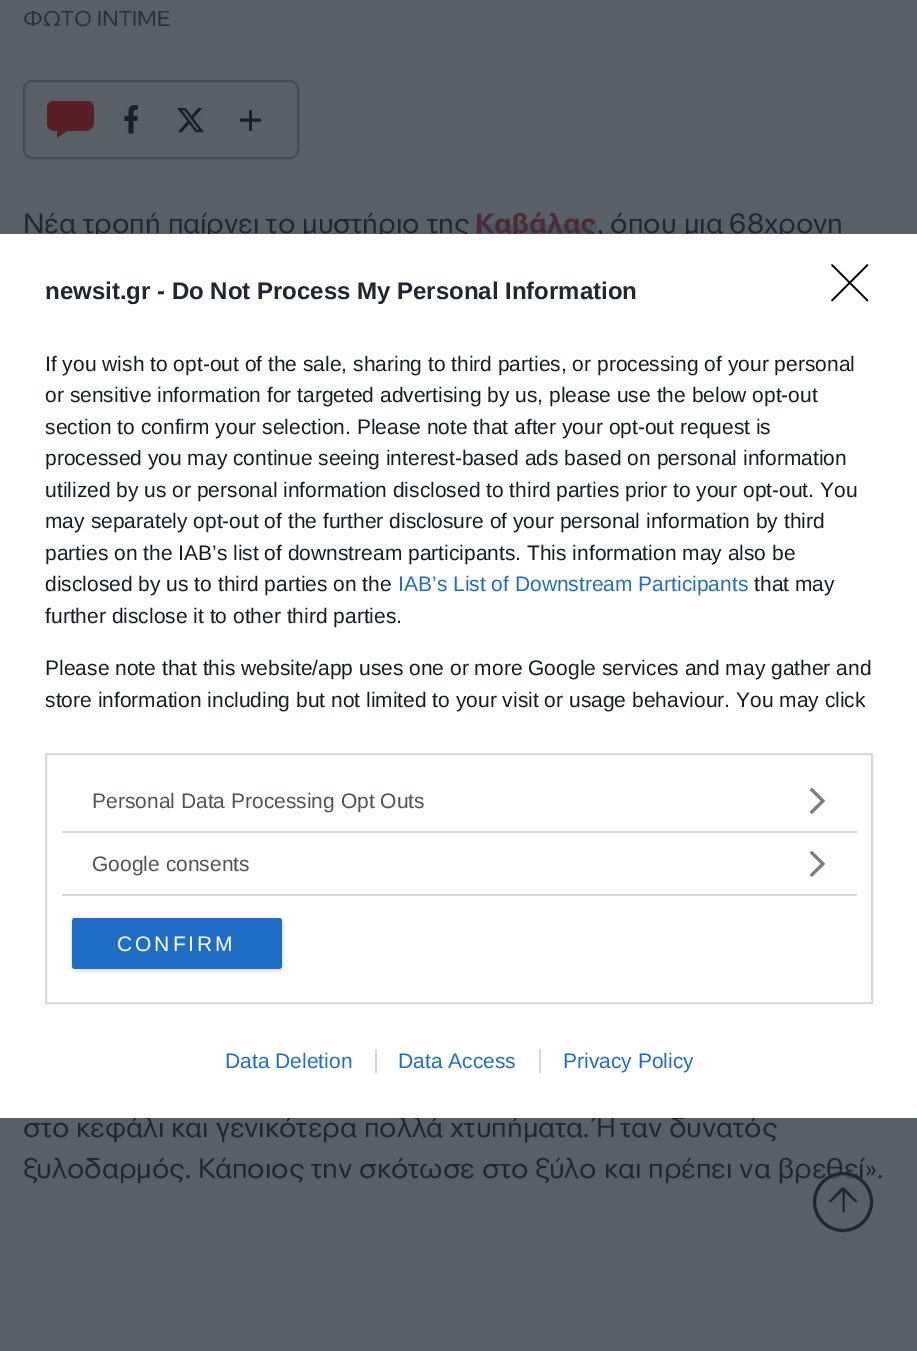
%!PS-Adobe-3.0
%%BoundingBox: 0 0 917 1351
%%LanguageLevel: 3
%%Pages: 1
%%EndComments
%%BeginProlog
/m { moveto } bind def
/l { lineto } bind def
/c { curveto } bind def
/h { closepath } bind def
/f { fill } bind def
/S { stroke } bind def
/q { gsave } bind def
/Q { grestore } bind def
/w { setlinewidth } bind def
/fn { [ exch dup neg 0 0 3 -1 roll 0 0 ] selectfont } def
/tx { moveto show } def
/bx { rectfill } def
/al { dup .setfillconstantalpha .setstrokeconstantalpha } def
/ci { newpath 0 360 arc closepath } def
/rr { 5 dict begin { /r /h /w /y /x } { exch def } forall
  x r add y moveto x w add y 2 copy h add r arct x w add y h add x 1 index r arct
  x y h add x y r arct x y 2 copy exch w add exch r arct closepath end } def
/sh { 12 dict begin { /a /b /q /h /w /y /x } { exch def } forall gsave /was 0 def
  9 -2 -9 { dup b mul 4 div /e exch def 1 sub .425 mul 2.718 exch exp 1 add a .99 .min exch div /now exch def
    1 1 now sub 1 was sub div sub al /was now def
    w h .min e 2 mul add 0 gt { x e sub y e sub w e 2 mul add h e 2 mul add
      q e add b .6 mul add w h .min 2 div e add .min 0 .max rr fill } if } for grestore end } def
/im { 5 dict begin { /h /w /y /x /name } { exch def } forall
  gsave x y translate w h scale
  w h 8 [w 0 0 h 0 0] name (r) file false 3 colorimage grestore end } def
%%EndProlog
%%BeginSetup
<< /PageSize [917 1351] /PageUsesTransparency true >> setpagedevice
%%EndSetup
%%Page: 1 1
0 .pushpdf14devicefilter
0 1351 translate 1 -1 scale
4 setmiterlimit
0.349 0.373 0.404 setrgbcolor
0 0 917 1351 bx
/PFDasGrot-Regular 21 fn
0.173 0.192 0.22 setrgbcolor
(ΦΩΤΟ ΙΝΤΙΜΕ) 23 26 tx
0.275 0.29 0.318 setrgbcolor
2 w
24 81 274 77 8 rr S
q
47 101 48 37 rectclip
0.349 0.122 0.153 setrgbcolor
86 100 m 53 101 l 45 102 46 112 46 118 c 46 126 48 131 57 131 c 57 138 l 67 131 l 86 131 l 90 131 94 127 94 123 c 94 109 l 94 104 90 100 86 100 c h f
Q
(image0.raw) 124 105 14 29 im
(image1.raw) 177 108 27 25 im
0.098 0.122 0.153 setrgbcolor
3 w
240 120 m 261 120 l S
249 110 3 21 bx
/PFDasGrot-Regular 27 fn
0.129 0.153 0.188 setrgbcolor
(Νέα τροπή παίρνει το μυστήριο της) 23 233 tx
q 476 224 m 597 224 l 597 234 l 476 234 l h clip newpath
<< /ShadingType 2 /ColorSpace /DeviceRGB /Coords [536 242 536 206] /Extend [true true] /Function << /FunctionType 3 /Domain [0 1] /Functions [<< /FunctionType 2 /Domain [0 1] /C0 [0.298 0.333 0.404] /C1 [0.298 0.333 0.404] /N 1 >> << /FunctionType 2 /Domain [0 1] /C0 [0.349 0.373 0.404] /C1 [0.349 0.373 0.404] /N 1 >>] /Bounds [0.5] /Encode [0 1 0 1] >> >> shfill Q
/PFDasGrot-Bold 27 fn
0.294 0.173 0.204 setrgbcolor
(Καβάλας) 475 233 tx
/PFDasGrot-Regular 27 fn
0.129 0.153 0.188 setrgbcolor
(, όπου μια 68χρονη) 597 233 tx
(στο κεφάλι και γενικότερα πολλά χτυπήματα. Ήταν δυνατός) 23 1137 tx
(ξυλοδαρμός. Κάποιος την σκότωσε στο ξύλο και πρέπει να βρεθεί».) 23 1178 tx
1 setgray
0 234 917 884 bx
0 setgray
1.5 w
1 setlinecap
1 setlinejoin
832 265 m 867.5 300.5 l 867.5 265 m 832 300.5 l S
/LiberationSans-Bold 24 fn
0.129 0.153 0.188 setrgbcolor
(newsit.gr - Do Not Process My Personal Information) 45 299 tx
/LiberationSans-Regular 21 fn
0.078 0.118 0.137 setrgbcolor
(If you wish to opt-out of the sale, sharing to third parties, or processing of your personal) 45 371 tx
(or sensitive information for targeted advertising by us, please use the below opt-out) 45 402 tx
(section to confirm your selection. Please note that after your opt-out request is) 45 434 tx
(processed you may continue seeing interest-based ads based on personal information) 45 465 tx
(utilized by us or personal information disclosed to third parties prior to your opt-out. You) 45 497 tx
(may separately opt-out of the further disclosure of your personal information by third) 45 528 tx
(parties on the IAB’s list of downstream participants. This information may also be) 45 560 tx
(disclosed by us to third parties on the) 45 591 tx
0.125 0.427 0.773 setrgbcolor
(IAB’s List of Downstream Participants) 398 591 tx
0.078 0.118 0.137 setrgbcolor
(that may) 754 591 tx
(further disclose it to other third parties.) 45 623 tx
(Please note that this website/app uses one or more Google services and may gather and) 45 675 tx
(store information including but not limited to your visit or usage behaviour. You may click) 45 707 tx
0.847 setgray
2 w
0 setlinecap
0 setlinejoin
46 754 826 249 rectstroke
62 831 795 2 bx
0.302 0.329 0.365 setrgbcolor
(Personal Data Processing Opt Outs) 92 808 tx
(image2.raw) 809 788 16 26 im
0.847 setgray
62 894 795 2 bx
0.302 0.329 0.365 setrgbcolor
(Google consents) 92 871 tx
(image2.raw) 809 851 16 26 im
0 setgray
71 918 213 54 5 1 0.1 sh
0.125 0.427 0.773 setrgbcolor
72 918 210 51 3 rr f
1 setgray
117 951 m 3 0 (CONFIRM) ashow
0.125 0.427 0.773 setrgbcolor
(Data Deletion) 225 1068 tx
(Data Access) 398 1068 tx
0.847 setgray
375 1049 2 24 bx
0.125 0.427 0.773 setrgbcolor
(Privacy Policy) 563 1068 tx
0.847 setgray
539 1049 2 24 bx
0.6 al
0.349 0.373 0.404 setrgbcolor
843 1202 28.5 ci f
1 al
0.129 0.153 0.188 setrgbcolor
3 w
843 1202 28.5 ci S
(image3.raw) 828 1187 30 26 im
.poppdf14devicefilter showpage
%%EOF
